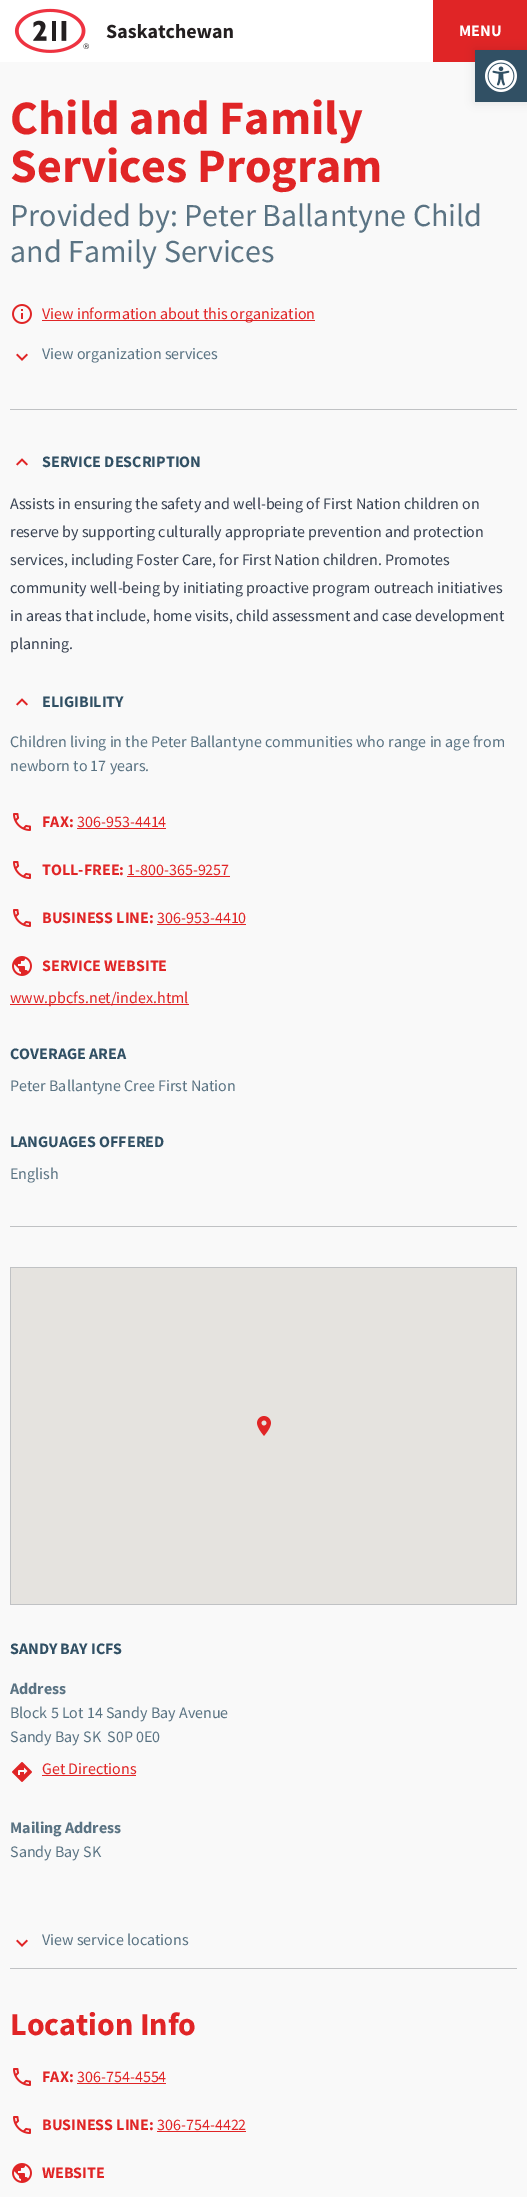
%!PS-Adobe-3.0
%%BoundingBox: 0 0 527 2197
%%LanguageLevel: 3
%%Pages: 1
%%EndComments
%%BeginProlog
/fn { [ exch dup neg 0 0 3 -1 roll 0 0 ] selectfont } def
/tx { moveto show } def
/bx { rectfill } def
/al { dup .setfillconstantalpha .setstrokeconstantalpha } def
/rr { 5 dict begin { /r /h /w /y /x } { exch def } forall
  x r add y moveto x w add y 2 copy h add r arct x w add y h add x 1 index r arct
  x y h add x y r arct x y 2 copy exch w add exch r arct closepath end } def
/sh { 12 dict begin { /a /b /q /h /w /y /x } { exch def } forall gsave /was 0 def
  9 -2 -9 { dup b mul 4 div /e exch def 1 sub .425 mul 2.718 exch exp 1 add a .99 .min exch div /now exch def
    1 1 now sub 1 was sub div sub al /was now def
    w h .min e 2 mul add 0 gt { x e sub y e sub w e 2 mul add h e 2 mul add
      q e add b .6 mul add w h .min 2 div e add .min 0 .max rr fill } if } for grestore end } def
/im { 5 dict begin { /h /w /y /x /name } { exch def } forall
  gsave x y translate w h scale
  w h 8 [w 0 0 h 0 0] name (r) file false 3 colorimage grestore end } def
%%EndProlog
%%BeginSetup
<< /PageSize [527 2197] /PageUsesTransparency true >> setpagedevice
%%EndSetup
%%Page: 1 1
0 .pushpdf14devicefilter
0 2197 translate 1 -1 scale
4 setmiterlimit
0.976 setgray
0 0 527 2197 bx
1 setgray
0 0 433 62 bx
(image0.raw) 14 8 219 45 im
0.878 0.145 0.149 setrgbcolor
433 0 94 62 bx
/SourceSansPro-Bold 16 fn
1 setgray
(MENU) 459 36 tx
/SourceSansPro-Bold 48 fn
0.878 0.145 0.149 setrgbcolor
(Child and Family) 10 134 tx
(Services Program) 10 182 tx
/SourceSansPro-Regular 32 fn
0.353 0.451 0.514 setrgbcolor
(Provided by: Peter Ballantyne Child) 10 226 tx
(and Family Services) 10 262 tx
(image1.raw) 12 304 20 20 im
0.878 0.145 0.149 setrgbcolor
42 320 273 1 bx
/SourceSansPro-Regular 16 fn
(View information about this organization) 42 319 tx
(image2.raw) 16 353 12 8 im
0.353 0.451 0.514 setrgbcolor
(View organization services) 42 359 tx
0.753 0.761 0.769 setrgbcolor
10 409 507 1 bx
(image3.raw) 16 458 12 8 im
/SourceSansPro-Bold 16 fn
0.192 0.314 0.392 setrgbcolor
(SERVICE DESCRIPTION) 42 467 tx
/SourceSansPro-Regular 16 fn
0.216 0.255 0.318 setrgbcolor
(Assists in ensuring the safety and well-being of First Nation children on) 10 509 tx
(reserve by supporting culturally appropriate prevention and protection) 10 537 tx
(services, including Foster Care, for First Nation children. Promotes) 10 565 tx
(community well-being by initiating proactive program outreach initiatives) 10 593 tx
(in areas that include, home visits, child assessment and case development) 10 621 tx
(planning.) 10 649 tx
(image3.raw) 16 698 12 8 im
/SourceSansPro-Bold 16 fn
0.192 0.314 0.392 setrgbcolor
(ELIGIBILITY) 42 707 tx
/SourceSansPro-Regular 16 fn
0.353 0.451 0.514 setrgbcolor
(Children living in the Peter Ballantyne communities who range in age from) 10 747 tx
(newborn to 17 years.) 10 771 tx
(image4.raw) 13 813 18 18 im
/SourceSansPro-Bold 16 fn
0.878 0.145 0.149 setrgbcolor
(FAX:) 42 827 tx
/SourceSansPro-Regular 16 fn
(306-953-4414) 77 827 tx
77 828 89 1 bx
(image4.raw) 13 861 18 18 im
/SourceSansPro-Bold 16 fn
(TOLL-FREE:) 42 875 tx
/SourceSansPro-Regular 16 fn
(1-800-365-9257) 127 875 tx
127 876 103 1 bx
(image4.raw) 13 909 18 18 im
/SourceSansPro-Bold 16 fn
(BUSINESS LINE:) 42 923 tx
/SourceSansPro-Regular 16 fn
(306-953-4410) 157 923 tx
157 924 89 1 bx
(image5.raw) 12 956 20 20 im
/SourceSansPro-Bold 16 fn
(SERVICE WEBSITE) 42 971 tx
10 1004 179 1 bx
/SourceSansPro-Regular 16 fn
(www.pbcfs.net/index.html) 10 1003 tx
/SourceSansPro-Bold 16 fn
0.192 0.314 0.392 setrgbcolor
(COVERAGE AREA) 10 1059 tx
/SourceSansPro-Regular 16 fn
0.353 0.451 0.514 setrgbcolor
(Peter Ballantyne Cree First Nation) 10 1091 tx
/SourceSansPro-Bold 16 fn
0.192 0.314 0.392 setrgbcolor
(LANGUAGES OFFERED) 10 1147 tx
/SourceSansPro-Regular 16 fn
0.353 0.451 0.514 setrgbcolor
(English) 10 1179 tx
0.753 0.761 0.769 setrgbcolor
10 1226 507 1 bx
10 1267 507 338 bx
0.898 0.89 0.875 setrgbcolor
11 1268 505 336 bx
(image6.raw) 257 1416 14 20 im
/SourceSansPro-Bold 16 fn
0.192 0.314 0.392 setrgbcolor
(SANDY BAY ICFS) 10 1654 tx
0.353 0.451 0.514 setrgbcolor
(Address) 10 1694 tx
/SourceSansPro-Regular 16 fn
(Block 5 Lot 14 Sandy Bay Avenue) 10 1718 tx
(Sandy Bay SK  S0P 0E0) 10 1742 tx
(image7.raw) 12 1762 20 20 im
0.878 0.145 0.149 setrgbcolor
(Get Directions) 42 1774 tx
42 1775 94 1 bx
/SourceSansPro-Bold 16 fn
0.353 0.451 0.514 setrgbcolor
(Mailing Address) 10 1833 tx
/SourceSansPro-Regular 16 fn
(Sandy Bay SK) 10 1857 tx
(image2.raw) 16 1939 12 8 im
(View service locations) 42 1945 tx
0.753 0.761 0.769 setrgbcolor
10 1968 507 1 bx
/SourceSansPro-Bold 32 fn
0.878 0.145 0.149 setrgbcolor
(Location Info) 10 2035 tx
(image4.raw) 13 2068 18 18 im
/SourceSansPro-Bold 16 fn
(FAX:) 42 2082 tx
/SourceSansPro-Regular 16 fn
(306-754-4554) 77 2082 tx
77 2083 89 1 bx
(image4.raw) 13 2116 18 18 im
/SourceSansPro-Bold 16 fn
(BUSINESS LINE:) 42 2130 tx
/SourceSansPro-Regular 16 fn
(306-754-4422) 157 2130 tx
157 2131 89 1 bx
(image5.raw) 12 2163 20 20 im
/SourceSansPro-Bold 16 fn
(WEBSITE) 42 2178 tx
0 setgray
475 50 52 52 0 5 0.1 sh
0.192 0.314 0.392 setrgbcolor
475 50 52 52 bx
(image8.raw) 485 60 32 32 im
.poppdf14devicefilter showpage
%%EOF
